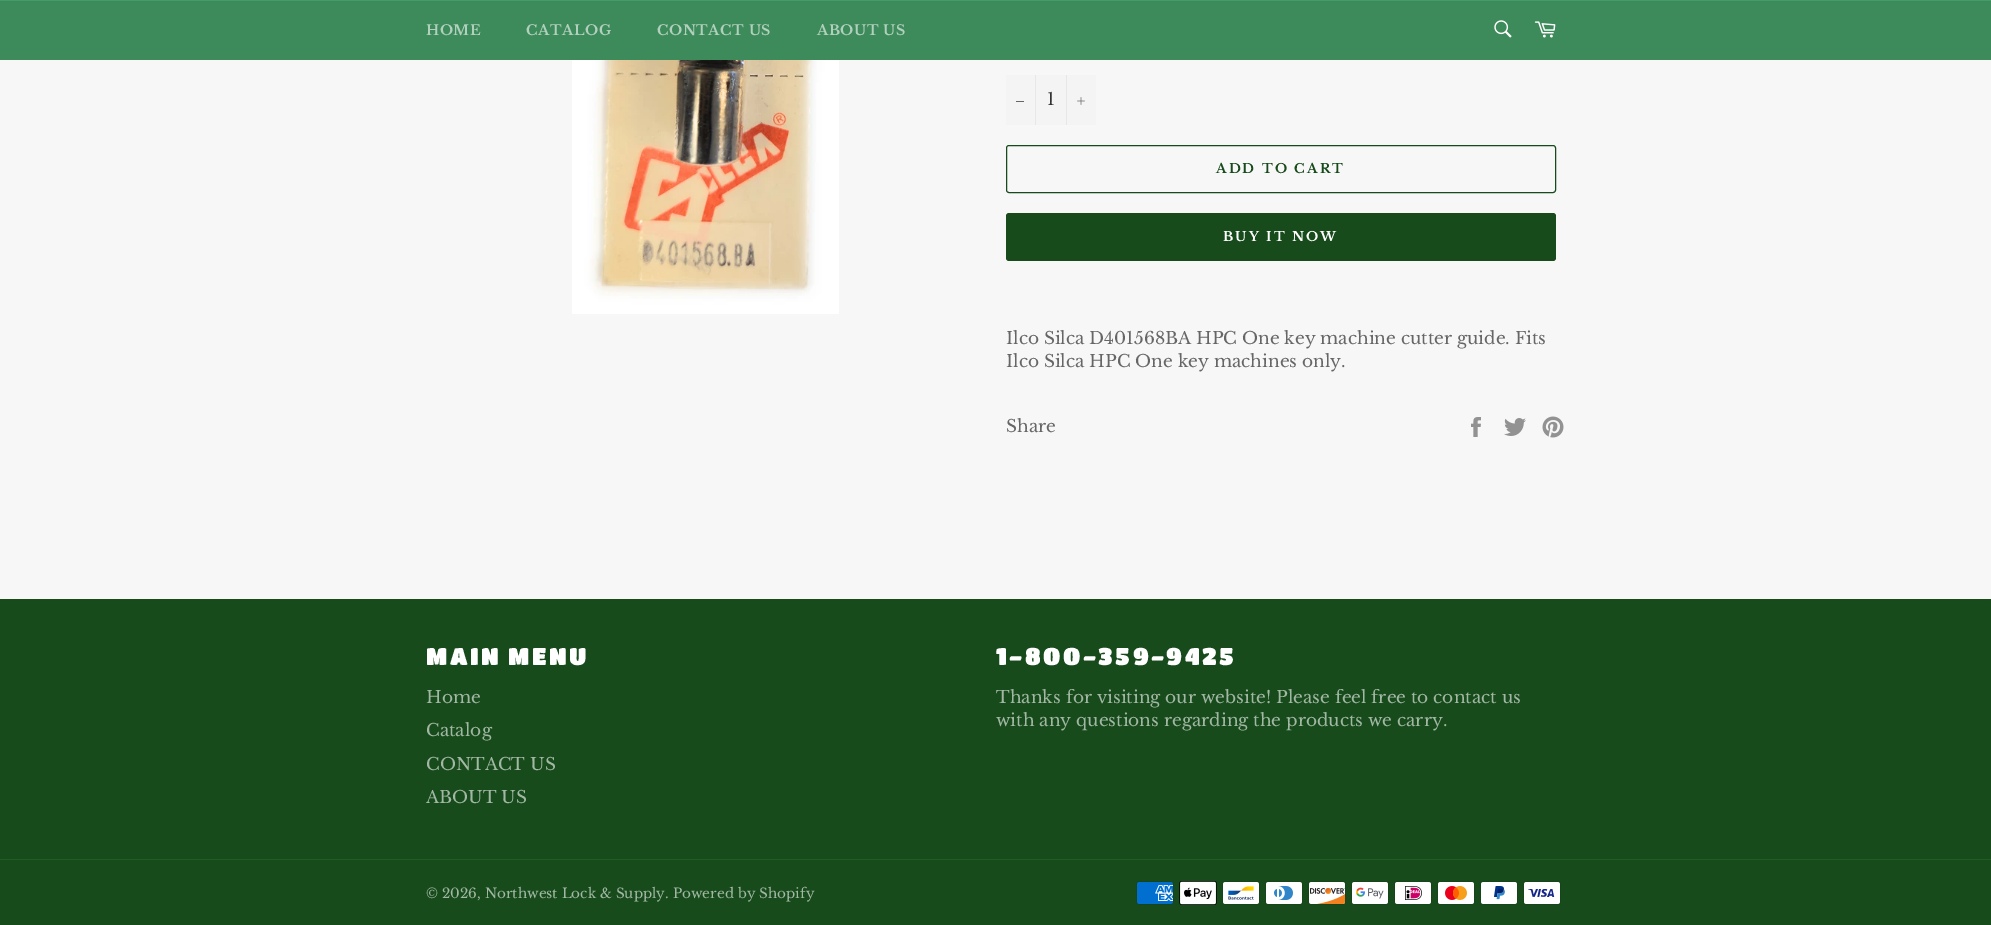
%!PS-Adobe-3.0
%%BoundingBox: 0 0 1991 925
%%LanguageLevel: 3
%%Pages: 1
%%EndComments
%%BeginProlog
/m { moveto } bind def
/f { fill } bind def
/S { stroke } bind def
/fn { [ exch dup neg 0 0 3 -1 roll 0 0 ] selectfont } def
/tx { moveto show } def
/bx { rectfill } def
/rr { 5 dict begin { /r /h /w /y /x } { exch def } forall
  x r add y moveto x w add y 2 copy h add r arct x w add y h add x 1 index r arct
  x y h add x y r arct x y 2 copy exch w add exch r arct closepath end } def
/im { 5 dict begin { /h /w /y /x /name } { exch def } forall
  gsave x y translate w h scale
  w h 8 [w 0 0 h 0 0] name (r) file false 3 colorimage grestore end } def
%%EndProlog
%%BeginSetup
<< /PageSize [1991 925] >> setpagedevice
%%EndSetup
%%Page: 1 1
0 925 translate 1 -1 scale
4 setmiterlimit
0.969 setgray
0 0 1991 925 bx
0.239 0.541 0.357 setrgbcolor
0 1 1991 59 bx
0.271 0.612 0.404 setrgbcolor
0 0 1991 1 bx
/LibreBaskerville-Bold 14 fn
0.694 0.816 0.741 setrgbcolor
426 35 m 0.5 0 (HOME) ashow
526 35 m 0.5 0 (CATALOG) ashow
657 35 m 0.5 0 (CONTACT US) ashow
817 35 m 0.5 0 (ABOUT US) ashow
(image0.raw) 1494 20 18 18 im
(image1.raw) 1534 21 22 17 im
(image2.raw) 572 60 267 254 im
0.957 setgray
1006 75 90 50 bx
0.906 setgray
1035 75 1 50 bx
0.4 setgray
1016 101 8 1 bx
/LibreBaskerville-Regular 17 fn
0.2 setgray
(1) 1047 105 tx
0.906 setgray
1066 75 1 50 bx
(image3.raw) 1077 97 8 8 im
0.09 0.294 0.106 setrgbcolor
1006.5 145.5 549 47 2.5 rr S
/LibreBaskerville-Bold 13 fn
1216 173 m 2 0 (ADD TO CART) ashow
1006 213 550 48 3 rr f
1 setgray
1223 241 m 2 0 (BUY IT NOW) ashow
/LibreBaskerville-Regular 17 fn
0.4 setgray
(Ilco Silca D401568BA HPC One key machine cutter guide. Fits) 1006 344 tx
(Ilco Silca HPC One key machines only.) 1006 367 tx
(Share) 1006 432 tx
(image4.raw) 1471 417 10 20 im
(image5.raw) 1504 418 22 18 im
(image6.raw) 1542 416 22 22 im
0.09 0.294 0.106 setrgbcolor
0 599 1991 326 bx
/TitanOne-Regular 24 fn
1 setgray
426 665 m 2.4 0 (MAIN MENU) ashow
/LibreBaskerville-Regular 17 fn
0.635 0.718 0.643 setrgbcolor
(Home) 426 703 tx
(Catalog) 426 736 tx
(CONTACT US) 426 770 tx
(ABOUT US) 426 803 tx
/TitanOne-Regular 24 fn
1 setgray
996 665 m 2.4 0 (1-800-359-9425) ashow
/LibreBaskerville-Regular 17 fn
0.635 0.718 0.643 setrgbcolor
(Thanks for visiting our website! Please feel free to contact us) 996 703 tx
(with any questions regarding the products we carry.) 996 726 tx
0.114 0.373 0.133 setrgbcolor
0 859 1991 1 bx
/LibreBaskerville-Regular 13.6 fn
0.635 0.718 0.643 setrgbcolor
(© 2026, Northwest Lock & Supply. Powered by Shopify) 426 898 tx
(image7.raw) 1136 881 38 24 im
(image8.raw) 1179 881 38 24 im
(image9.raw) 1222 881 38 24 im
(image10.raw) 1265 881 38 24 im
(image11.raw) 1308 881 38 24 im
(image12.raw) 1351 881 38 24 im
(image13.raw) 1394 881 38 24 im
(image14.raw) 1437 881 38 24 im
(image15.raw) 1480 881 38 24 im
(image16.raw) 1523 881 38 24 im
showpage
%%EOF
